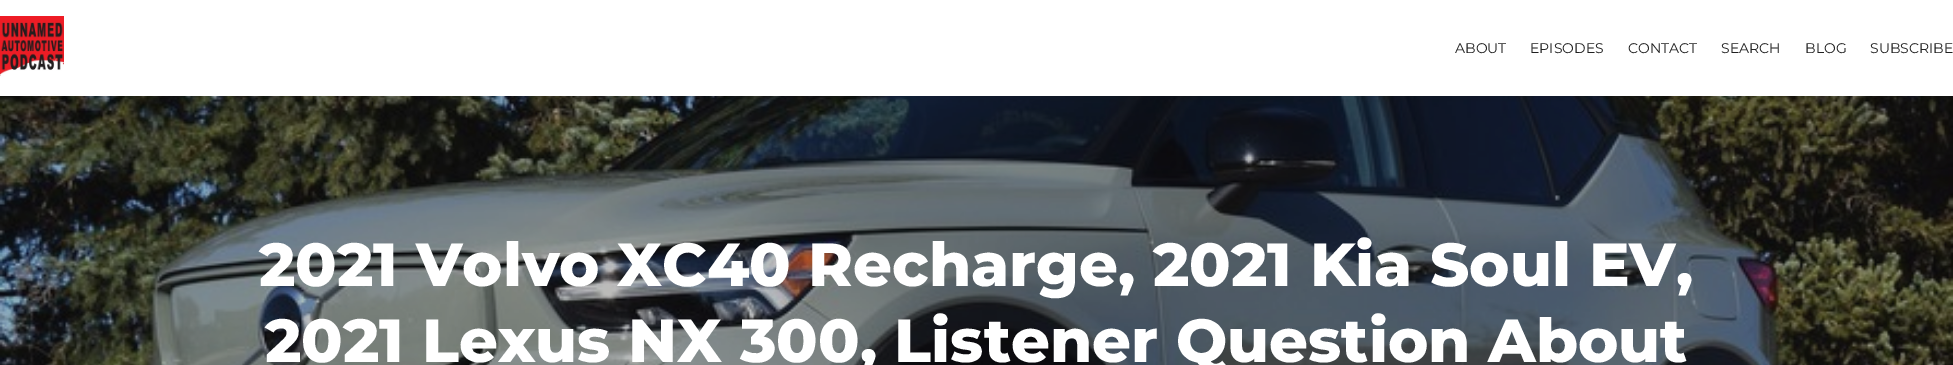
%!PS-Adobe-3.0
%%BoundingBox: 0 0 1953 365
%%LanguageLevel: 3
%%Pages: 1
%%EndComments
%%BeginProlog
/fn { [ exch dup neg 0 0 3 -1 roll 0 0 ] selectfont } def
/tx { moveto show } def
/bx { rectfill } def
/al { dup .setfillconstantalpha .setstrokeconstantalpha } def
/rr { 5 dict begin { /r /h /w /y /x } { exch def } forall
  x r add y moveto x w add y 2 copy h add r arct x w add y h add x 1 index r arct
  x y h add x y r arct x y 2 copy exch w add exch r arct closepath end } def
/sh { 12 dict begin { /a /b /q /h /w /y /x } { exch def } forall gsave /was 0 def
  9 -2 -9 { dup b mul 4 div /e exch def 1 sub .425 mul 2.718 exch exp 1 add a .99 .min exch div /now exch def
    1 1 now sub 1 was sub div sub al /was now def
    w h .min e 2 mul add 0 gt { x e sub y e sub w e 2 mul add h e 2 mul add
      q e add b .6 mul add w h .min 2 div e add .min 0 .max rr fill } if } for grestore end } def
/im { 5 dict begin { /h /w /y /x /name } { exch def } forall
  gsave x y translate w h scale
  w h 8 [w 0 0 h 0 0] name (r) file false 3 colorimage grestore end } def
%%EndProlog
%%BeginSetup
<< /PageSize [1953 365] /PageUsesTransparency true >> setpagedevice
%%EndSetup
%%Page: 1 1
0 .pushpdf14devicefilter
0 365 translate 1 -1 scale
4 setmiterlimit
1 setgray
0 0 1953 365 bx
(image1.raw) 0 96 1953 269 im
0 setgray
0 0 1953 96 0 8 0.1 sh
1 setgray
0 0 1953 96 bx
(image0.raw) 0 16 64 64 im
/Montserrat-Regular 14 fn
0.125 setgray
(ABOUT) 1455 53 tx
(EPISODES) 1530 53 tx
(CONTACT) 1628 53 tx
(SEARCH) 1721 53 tx
(BLOG) 1805 53 tx
(SUBSCRIBE) 1870 53 tx
/Montserrat-ExtraBold 60.75 fn
1 setgray
(2021 Volvo XC40 Recharge, 2021 Kia Soul EV,) 259 286 tx
(2021 Lexus NX 300, Listener Question About) 265 362 tx
.poppdf14devicefilter showpage
%%EOF
